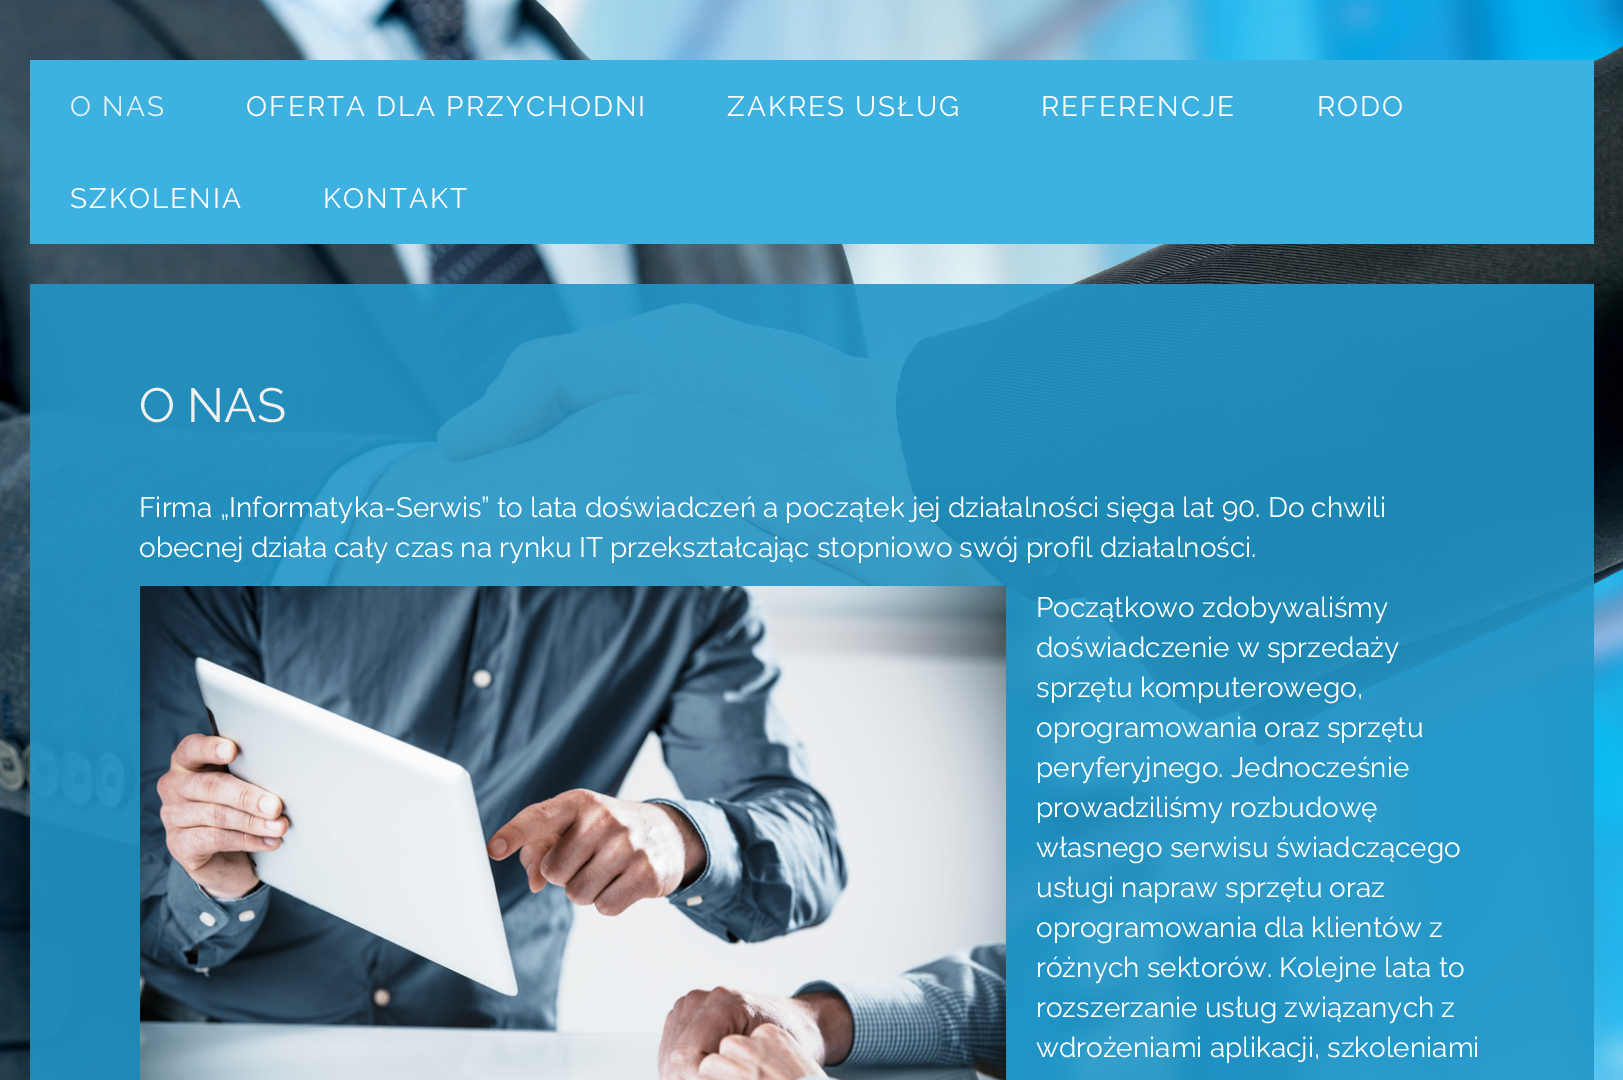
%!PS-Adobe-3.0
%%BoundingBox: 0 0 1623 1080
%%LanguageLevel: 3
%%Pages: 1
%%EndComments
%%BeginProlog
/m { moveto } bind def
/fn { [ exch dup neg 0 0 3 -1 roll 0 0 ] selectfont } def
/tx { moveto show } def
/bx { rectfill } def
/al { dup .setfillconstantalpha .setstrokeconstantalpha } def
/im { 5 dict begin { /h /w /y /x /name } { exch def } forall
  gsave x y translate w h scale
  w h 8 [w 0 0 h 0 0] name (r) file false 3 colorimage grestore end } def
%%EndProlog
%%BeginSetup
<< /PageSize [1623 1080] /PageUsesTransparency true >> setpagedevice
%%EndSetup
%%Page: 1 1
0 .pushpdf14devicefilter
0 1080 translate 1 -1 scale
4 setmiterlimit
1 setgray
0 0 1623 1080 bx
(image0.raw) 0 0 1623 1080 im
0.239 0.698 0.882 setrgbcolor
30 60 1564 184 bx
/Raleway-Thin 28 fn
0.875 0.949 0.98 setrgbcolor
70 116 m 2 0 (O NAS) ashow
1 setgray
246 116 m 2 0 (OFERTA DLA PRZYCHODNI) ashow
727 116 m 2 0 (ZAKRES USŁUG) ashow
1041 116 m 2 0 (REFERENCJE) ashow
1317 116 m 2 0 (RODO) ashow
70 208 m 2 0 (SZKOLENIA) ashow
323 208 m 2 0 (KONTAKT) ashow
0.9 al
0.129 0.584 0.776 setrgbcolor
30 284 1564 796 bx
/Raleway-Thin 48 fn
1 al
0.945 setgray
(O NAS) 139 422 tx
/Raleway-Thin 28 fn
1 setgray
(Firma „Informatyka-Serwis” to lata doświadczeń a początek jej działalności sięga lat 90. Do chwili) 139 517 tx
(obecnej działa cały czas na rynku IT przekształcając stopniowo swój profil działalności.) 139 557 tx
(image1.raw) 140 586 866 494 im
(Początkowo zdobywaliśmy) 1036 617 tx
(doświadczenie w sprzedaży) 1036 657 tx
(sprzętu komputerowego,) 1036 697 tx
(oprogramowania oraz sprzętu) 1036 737 tx
(peryferyjnego. Jednocześnie) 1036 777 tx
(prowadziliśmy rozbudowę) 1036 817 tx
(własnego serwisu świadczącego) 1036 857 tx
(usługi napraw sprzętu oraz) 1036 897 tx
(oprogramowania dla klientów z) 1036 937 tx
(różnych sektorów. Kolejne lata to) 1036 977 tx
(rozszerzanie usług związanych z) 1036 1017 tx
(wdrożeniami aplikacji, szkoleniami) 1036 1057 tx
.poppdf14devicefilter showpage
%%EOF
